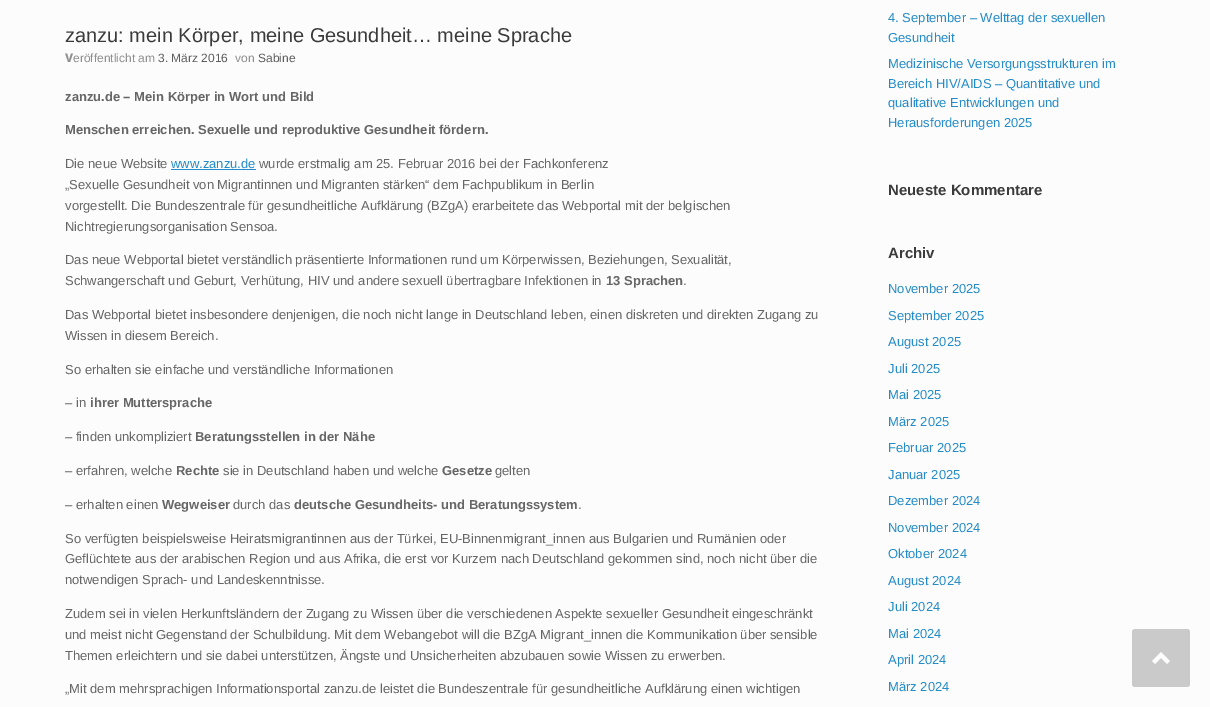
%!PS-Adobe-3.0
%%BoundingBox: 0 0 1210 707
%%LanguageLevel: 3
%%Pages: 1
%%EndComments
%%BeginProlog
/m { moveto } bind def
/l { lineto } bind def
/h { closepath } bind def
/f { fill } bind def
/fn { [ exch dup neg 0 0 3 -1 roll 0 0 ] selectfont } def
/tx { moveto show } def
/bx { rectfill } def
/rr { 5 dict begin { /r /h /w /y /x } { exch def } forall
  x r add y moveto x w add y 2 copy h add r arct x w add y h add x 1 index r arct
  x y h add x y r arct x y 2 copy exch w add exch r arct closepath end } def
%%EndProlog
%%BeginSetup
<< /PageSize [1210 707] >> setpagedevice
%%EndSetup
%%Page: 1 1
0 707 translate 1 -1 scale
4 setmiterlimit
0.988 setgray
0 0 1210 707 bx
/LiberationSans-Regular 20 fn
0.231 setgray
(zanzu: mein Körper, meine Gesundheit… meine Sprache) 65 42 tx
/NotoSans-ExtraBold 12 fn
0.561 setgray
(V) 65 62 tx
/LiberationSans-Regular 12 fn
(eröffentlicht am) 73 62 tx
0.369 setgray
(3. März 2016) 158 62 tx
0.561 setgray
(von) 235 62 tx
0.369 setgray
(Sabine) 258 62 tx
/LiberationSans-Bold 13 fn
0.4 setgray
(zanzu.de – Mein Körper in Wort und Bild) 65 101 tx
(Menschen erreichen. Sexuelle und reproduktive Gesundheit fördern.) 65 134 tx
/LiberationSans-Regular 13 fn
(Die neue Website) 65 168 tx
0.141 0.549 0.784 setrgbcolor
(www.zanzu.de) 171 168 tx
171 169 85 1 bx
0.4 setgray
(wurde erstmalig am 25. Februar 2016 bei der Fachkonferenz) 259 168 tx
(„Sexuelle Gesundheit von Migrantinnen und Migranten stärken“ dem Fachpublikum in Berlin) 65 189 tx
(vorgestellt. Die Bundeszentrale für gesundheitliche Aufklärung \(BZgA\) erarbeitete das Webportal mit der belgischen) 65 210 tx
(Nichtregierungsorganisation Sensoa.) 65 231 tx
(Das neue Webportal bietet verständlich präsentierte Informationen rund um Körperwissen, Beziehungen, Sexualität,) 65 264 tx
(Schwangerschaft und Geburt, Verhütung, HIV und andere sexuell übertragbare Infektionen in) 65 285 tx
/LiberationSans-Bold 13 fn
(13 Sprachen) 606 285 tx
/LiberationSans-Regular 13 fn
(.) 683 285 tx
(Das Webportal bietet insbesondere denjenigen, die noch nicht lange in Deutschland leben, einen diskreten und direkten Zugang zu) 65 319 tx
(Wissen in diesem Bereich.) 65 340 tx
(So erhalten sie einfache und verständliche Informationen) 65 374 tx
(– in) 65 407 tx
/LiberationSans-Bold 13 fn
(ihrer Muttersprache) 90 407 tx
/LiberationSans-Regular 13 fn
(– finden unkompliziert) 65 441 tx
/LiberationSans-Bold 13 fn
(Beratungsstellen in der Nähe) 195 441 tx
/LiberationSans-Regular 13 fn
(– erfahren, welche) 65 475 tx
/LiberationSans-Bold 13 fn
(Rechte) 176 475 tx
/LiberationSans-Regular 13 fn
(sie in Deutschland haben und welche) 223 475 tx
/LiberationSans-Bold 13 fn
(Gesetze) 442 475 tx
/LiberationSans-Regular 13 fn
(gelten) 495 475 tx
(– erhalten einen) 65 509 tx
/LiberationSans-Bold 13 fn
(Wegweiser) 162 509 tx
/LiberationSans-Regular 13 fn
(durch das) 233 509 tx
/LiberationSans-Bold 13 fn
(deutsche Gesundheits- und Beratungssystem) 294 509 tx
/LiberationSans-Regular 13 fn
(.) 578 509 tx
(So verfügten beispielsweise Heiratsmigrantinnen aus der Türkei, EU-Binnenmigrant_innen aus Bulgarien und Rumänien oder) 65 543 tx
(Geflüchtete aus der arabischen Region und aus Afrika, die erst vor Kurzem nach Deutschland gekommen sind, noch nicht über die) 65 563 tx
(notwendigen Sprach- und Landeskenntnisse.) 65 584 tx
(Zudem sei in vielen Herkunftsländern der Zugang zu Wissen über die verschiedenen Aspekte sexueller Gesundheit eingeschränkt) 65 618 tx
(und meist nicht Gegenstand der Schulbildung. Mit dem Webangebot will die BZgA Migrant_innen die Kommunikation über sensible) 65 639 tx
(Themen erleichtern und sie dabei unterstützen, Ängste und Unsicherheiten abzubauen sowie Wissen zu erwerben.) 65 660 tx
(„Mit dem mehrsprachigen Informationsportal zanzu.de leistet die Bundeszentrale für gesundheitliche Aufklärung einen wichtigen) 65 693 tx
0.141 0.549 0.784 setrgbcolor
(4. September – Welttag der sexuellen) 888 22 tx
(Gesundheit) 888 42 tx
(Medizinische Versorgungsstrukturen im) 888 68 tx
(Bereich HIV/AIDS – Quantitative und) 888 88 tx
(qualitative Entwicklungen und) 888 107 tx
(Herausforderungen 2025) 888 127 tx
/LiberationSans-Bold 15 fn
0.231 setgray
(Neueste Kommentare) 888 195 tx
(Archiv) 888 258 tx
/LiberationSans-Regular 13 fn
0.141 0.549 0.784 setrgbcolor
(November 2025) 888 293 tx
(September 2025) 888 320 tx
(August 2025) 888 346 tx
(Juli 2025) 888 373 tx
(Mai 2025) 888 399 tx
(März 2025) 888 426 tx
(Februar 2025) 888 452 tx
(Januar 2025) 888 479 tx
(Dezember 2024) 888 505 tx
(November 2024) 888 532 tx
(Oktober 2024) 888 558 tx
(August 2024) 888 585 tx
(Juli 2024) 888 611 tx
(Mai 2024) 888 638 tx
(April 2024) 888 664 tx
(März 2024) 888 691 tx
0.792 setgray
1132 629 58 58 3 rr f
0.992 setgray
1170 661 m 1161 652 l 1152 661 l 1155 664 l 1161 658 l 1167 664 l h f
showpage
%%EOF
